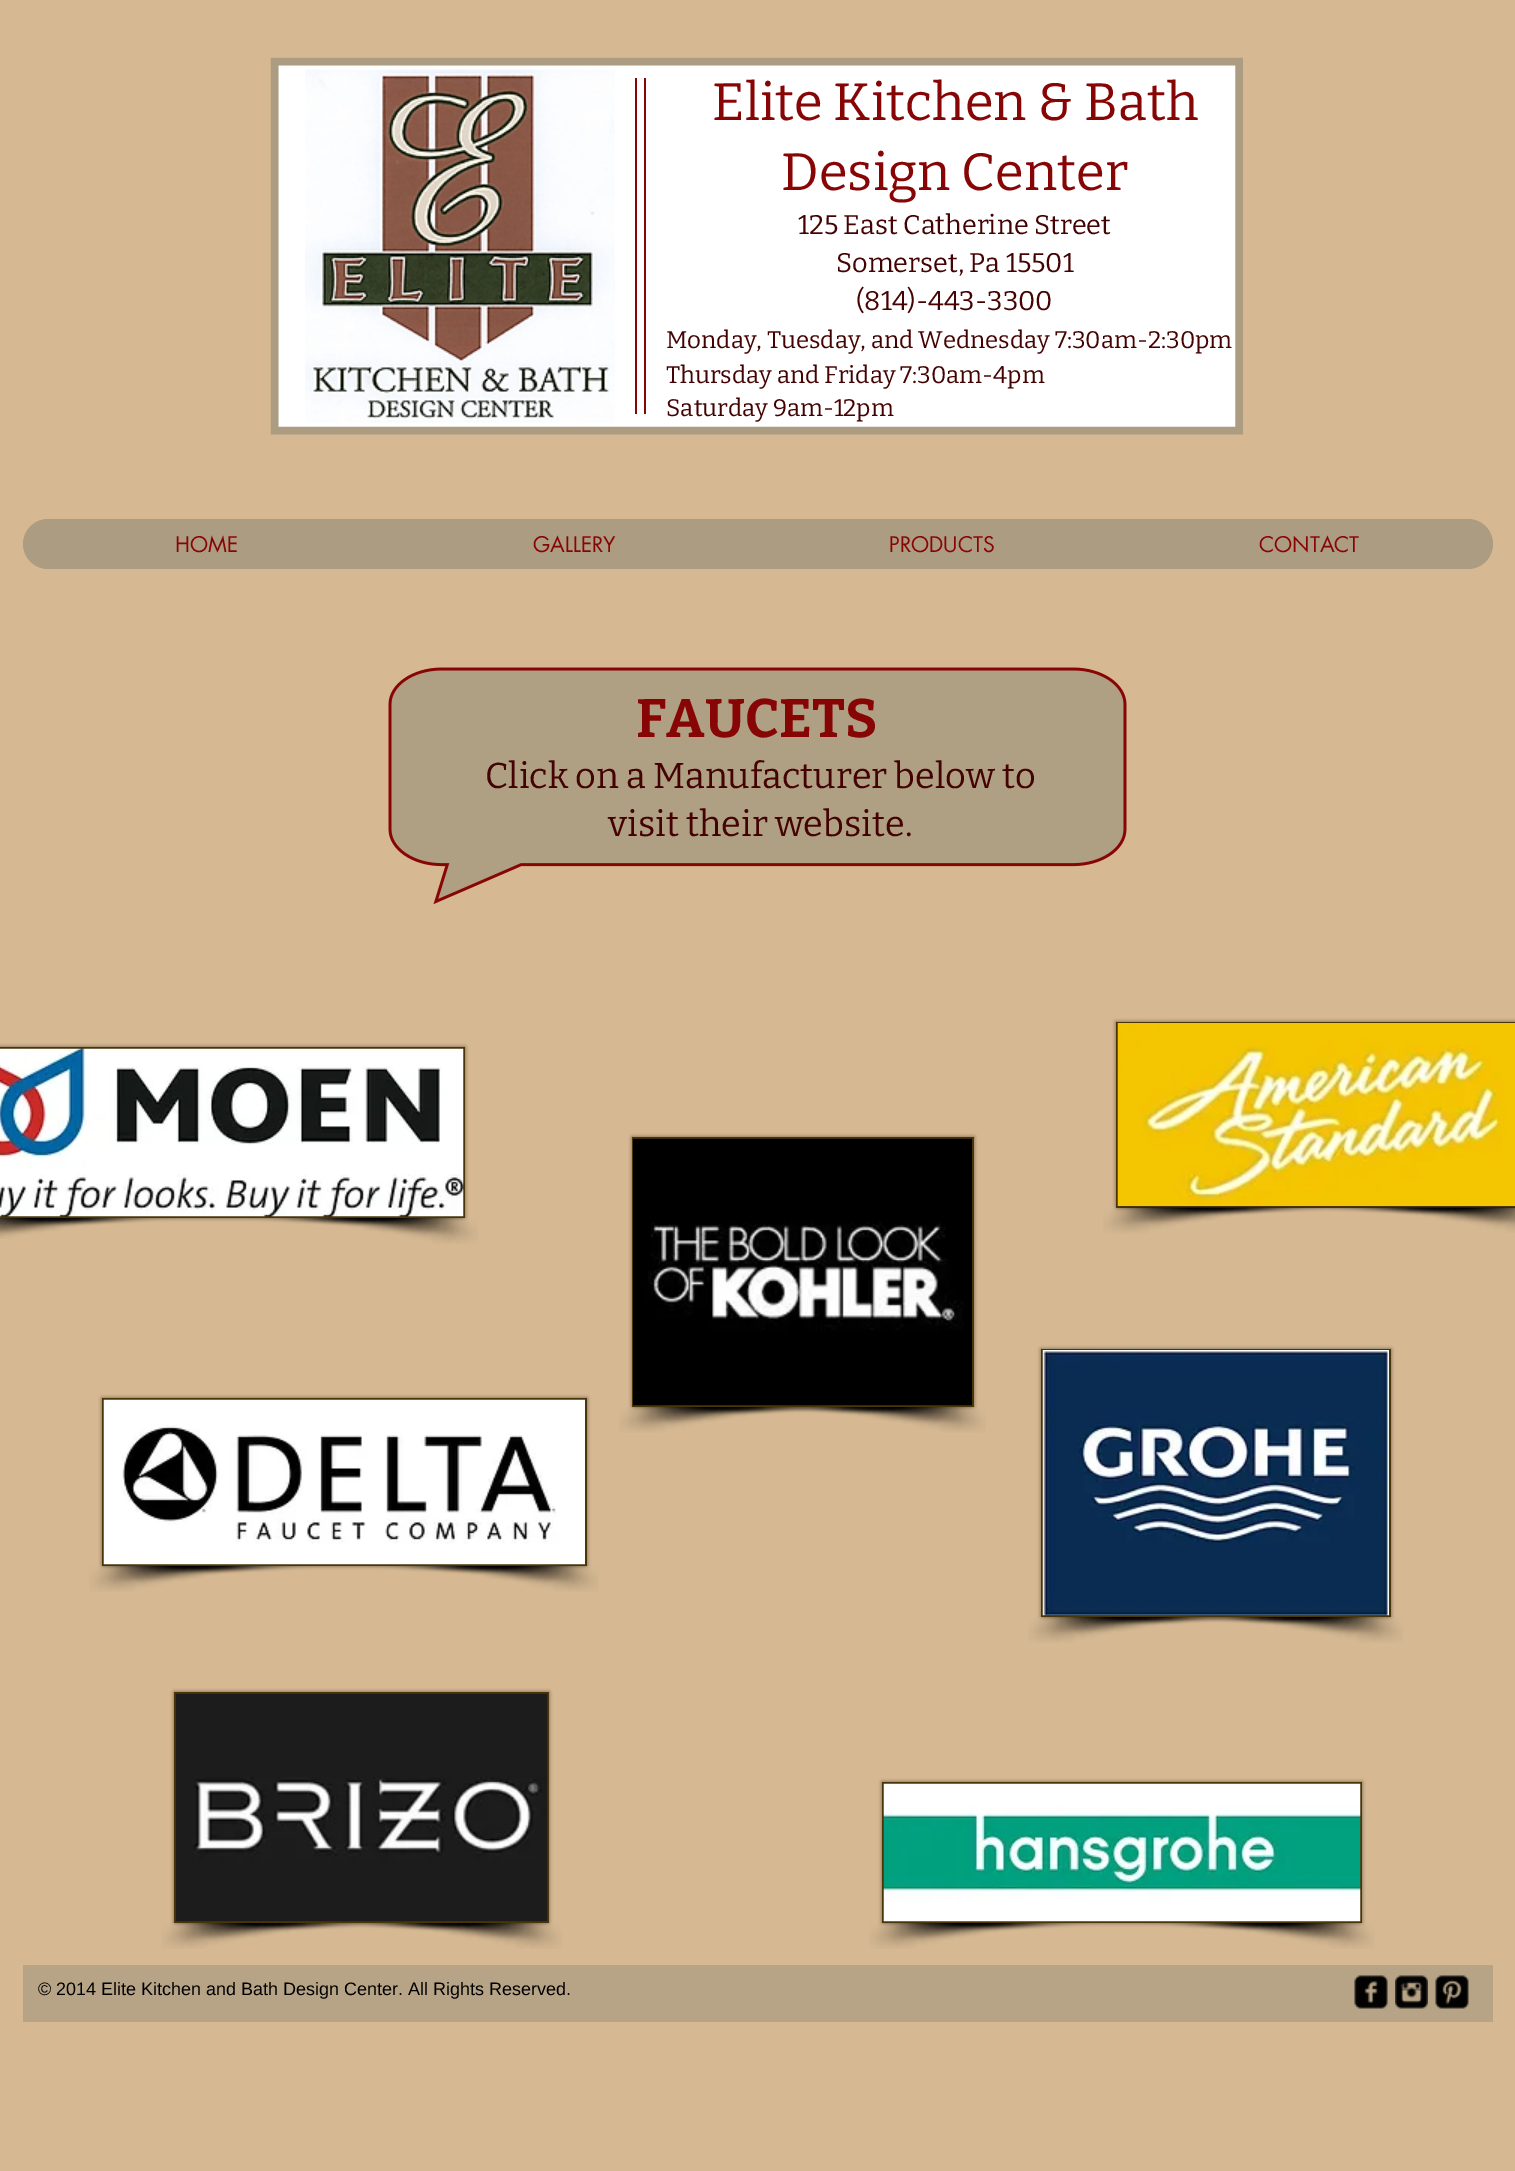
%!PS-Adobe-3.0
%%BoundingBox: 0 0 1515 2171
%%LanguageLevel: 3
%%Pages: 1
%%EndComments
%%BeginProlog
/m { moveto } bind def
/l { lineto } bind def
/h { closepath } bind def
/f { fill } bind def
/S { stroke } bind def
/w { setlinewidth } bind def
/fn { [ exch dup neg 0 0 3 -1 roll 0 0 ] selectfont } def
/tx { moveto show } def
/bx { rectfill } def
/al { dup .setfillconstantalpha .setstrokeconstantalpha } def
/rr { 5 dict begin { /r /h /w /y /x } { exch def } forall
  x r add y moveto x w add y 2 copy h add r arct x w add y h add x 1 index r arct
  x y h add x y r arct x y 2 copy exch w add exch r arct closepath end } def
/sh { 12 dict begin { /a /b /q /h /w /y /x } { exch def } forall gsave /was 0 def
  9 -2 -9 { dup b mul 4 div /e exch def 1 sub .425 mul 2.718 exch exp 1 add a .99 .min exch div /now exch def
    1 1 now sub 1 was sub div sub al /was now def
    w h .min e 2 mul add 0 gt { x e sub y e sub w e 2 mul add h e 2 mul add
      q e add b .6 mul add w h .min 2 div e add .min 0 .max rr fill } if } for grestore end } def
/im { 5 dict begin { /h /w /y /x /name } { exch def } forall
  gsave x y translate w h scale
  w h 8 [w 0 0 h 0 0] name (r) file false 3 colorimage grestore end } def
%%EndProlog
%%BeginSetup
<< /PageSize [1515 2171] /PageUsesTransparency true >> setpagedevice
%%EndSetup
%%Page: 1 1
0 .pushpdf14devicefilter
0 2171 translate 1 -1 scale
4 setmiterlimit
0.839 0.725 0.576 setrgbcolor
0 0 1515 2171 bx
1 setgray
278 65 958 362 bx
0.675 0.616 0.51 setrgbcolor
7.5 w
1239 61.5 m 1239 430.5 l 274.5 430.5 l 274.5 61.5 l h S
(image0.raw) 305 69 310 354 im
0.533 0.02 0.02 setrgbcolor
644 78 2 336 bx
635 78 2 336 bx
/Bitter-Regular 52.5 fn
(Elite Kitchen & Bath) 712 120 tx
(Design Center) 781 190 tx
/Bitter-Regular 27 fn
0.267 0.008 0.008 setrgbcolor
(125 East Catherine Street) 798 234 tx
(Somerset, Pa 15501) 836 272 tx
(\(814\)-443-3300) 856 310 tx
/Bitter-Regular 24 fn
(Monday, Tuesday, and Wednesday 7:30am-2:30pm) 666 348 tx
(Thursday and Friday 7:30am-4pm) 666 383 tx
(Saturday 9am-12pm) 666 416 tx
0.675 0.616 0.51 setrgbcolor
23 519 1470 50 25 rr f
/futura-Regular 21 fn
0.533 0.02 0.02 setrgbcolor
(HOME) 175 552 tx
(GALLERY) 533 552 tx
(PRODUCTS) 889 552 tx
(CONTACT) 1259 552 tx
(image1.raw) 388 667 739 238 im
/Bitter-Thin 54 fn
(FAUCETS) 636 737 tx
/Bitter-Regular 36 fn
0.267 0.008 0.008 setrgbcolor
(Click on a Manufacturer below to) 485 788 tx
(visit their website.) 608 836 tx
0 setgray
-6 1047 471 171 0 2 0.5 sh
0.286 0.208 0.031 setrgbcolor
0 1047 465 171 bx
(image2.raw) 0 1048 464 169 im
(image3.raw) 0 1218 177 21 im
(image4.raw) 248 1218 230 26 im
0 setgray
632 1137 342 270 0 2 0.5 sh
0.286 0.208 0.031 setrgbcolor
632 1137 342 270 bx
(image5.raw) 633 1138 339 268 im
(image6.raw) 619 1407 230 26 im
(image7.raw) 778 1407 208 26 im
0 setgray
1116 1022 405 186 0 2 0.5 sh
0.286 0.208 0.031 setrgbcolor
1116 1022 399 186 bx
(image8.raw) 1117 1023 398 183 im
(image9.raw) 1103 1207 223 27 im
(image10.raw) 1329 1207 186 26 im
0 setgray
102 1398 485 168 0 2 0.5 sh
0.286 0.208 0.031 setrgbcolor
102 1398 485 168 bx
(image11.raw) 103 1399 482 166 im
(image12.raw) 89 1566 230 26 im
(image13.raw) 369 1566 230 26 im
0 setgray
1041 1349 350 268 0 2 0.5 sh
0.286 0.208 0.031 setrgbcolor
1041 1349 350 268 bx
(image14.raw) 1042 1350 347 266 im
(image12.raw) 1028 1617 230 26 im
(image15.raw) 1193 1617 210 26 im
0 setgray
174 1692 375 231 0 2 0.5 sh
0.286 0.208 0.031 setrgbcolor
174 1692 375 231 bx
(image16.raw) 175 1693 373 229 im
(image12.raw) 161 1923 230 26 im
(image17.raw) 343 1923 219 26 im
0 setgray
882 1782 480 141 0 2 0.5 sh
0.286 0.208 0.031 setrgbcolor
882 1782 480 141 bx
(image18.raw) 883 1783 478 139 im
(image12.raw) 869 1923 230 26 im
(image19.raw) 1145 1923 230 26 im
0.718 0.643 0.525 setrgbcolor
23 1965 1470 57 bx
/LiberationSans-Regular 18 fn
0 setgray
(© 2014 Elite Kitchen and Bath Design Center. All Rights Reserved.) 38 1995 tx
(image20.raw) 1354 1975 34 34 im
(image21.raw) 1395 1975 33 34 im
(image22.raw) 1435 1975 34 34 im
.poppdf14devicefilter showpage
%%EOF
